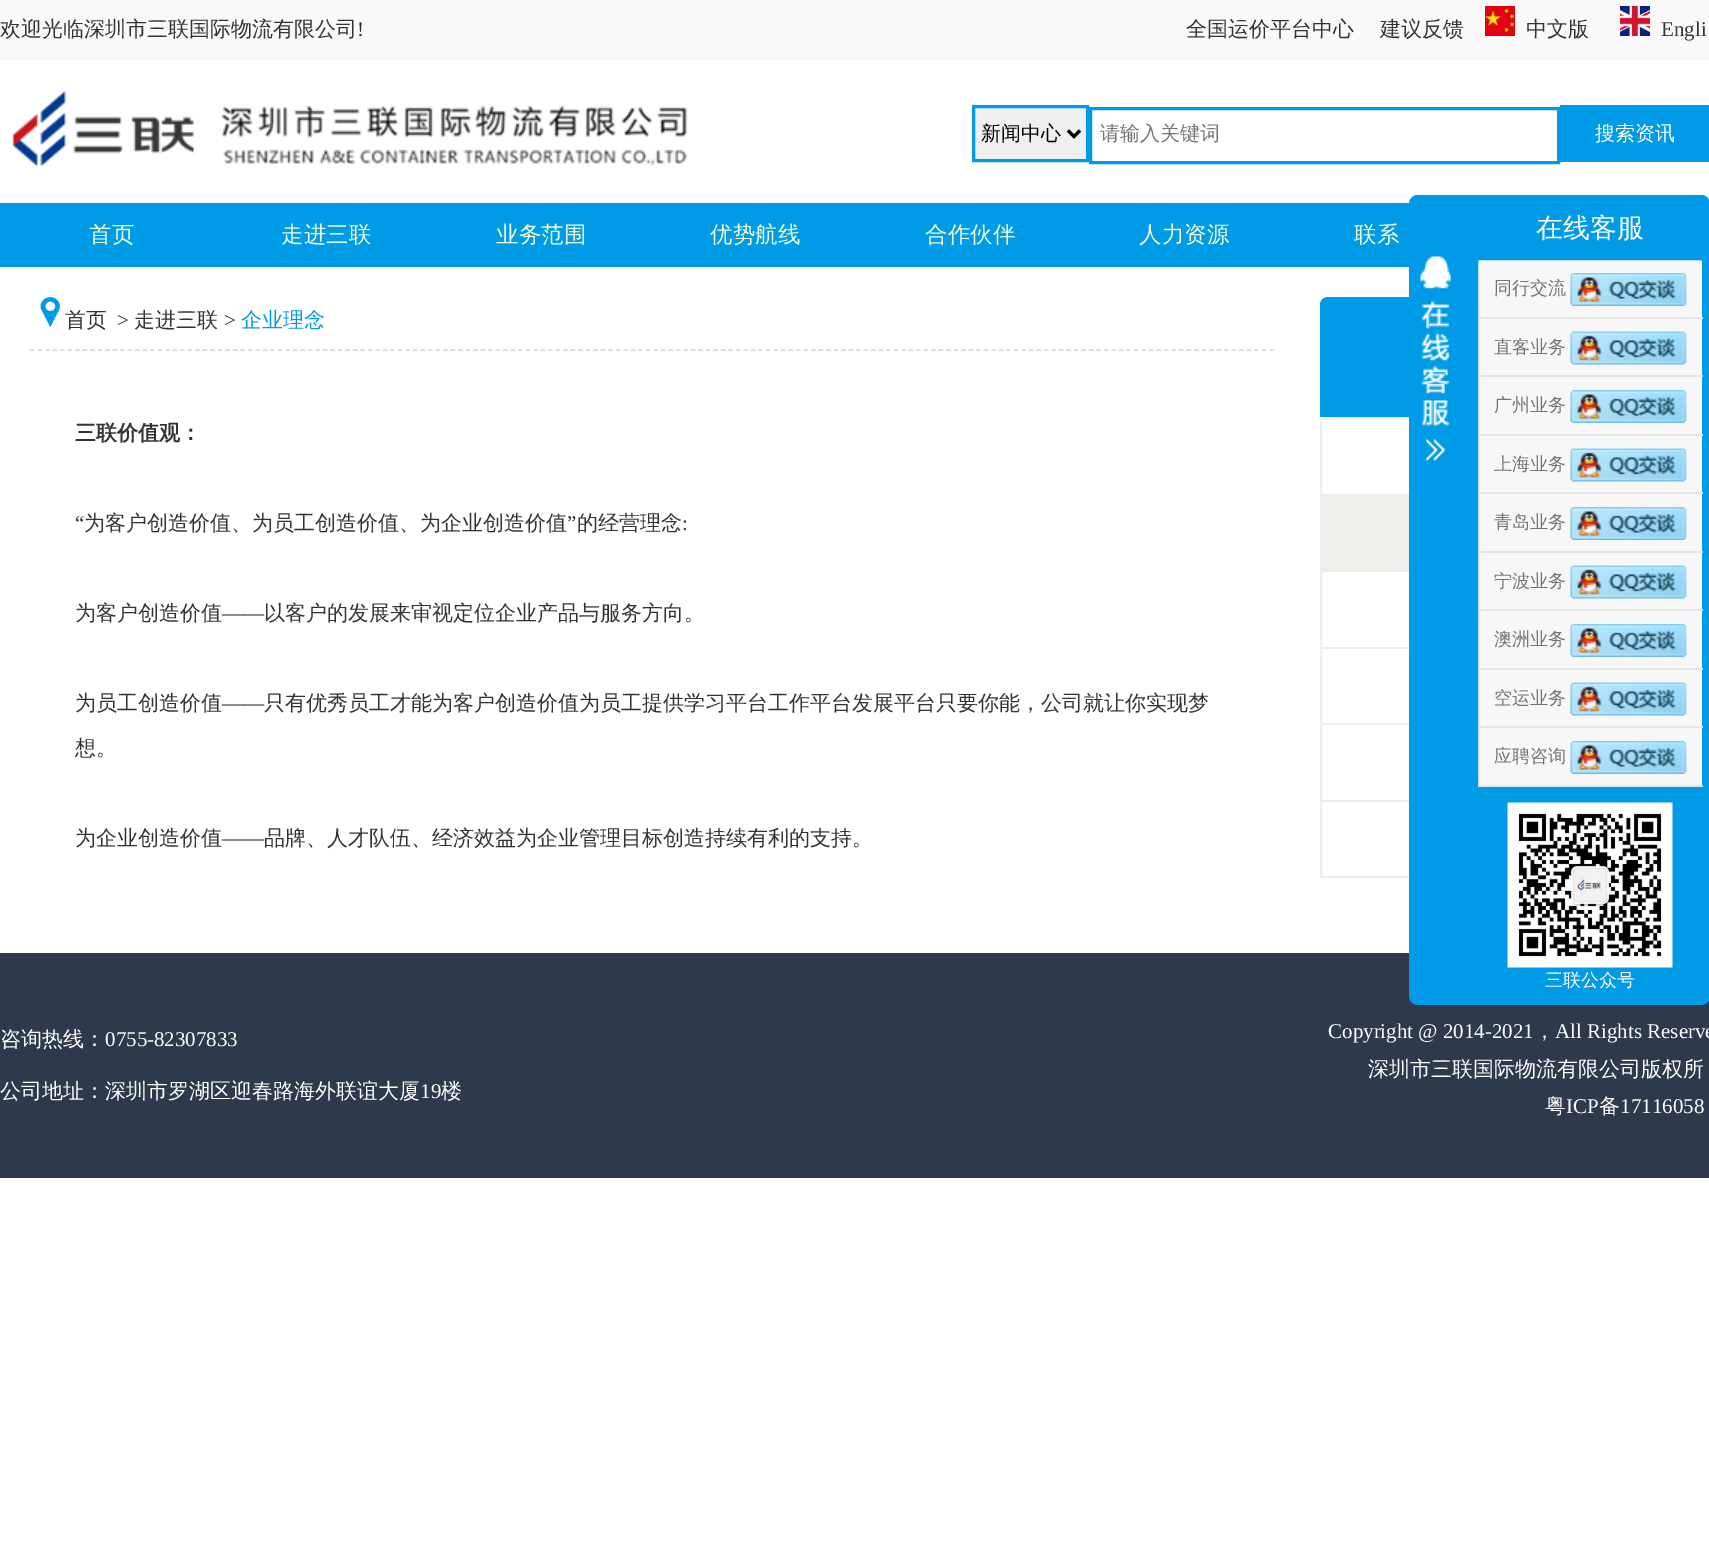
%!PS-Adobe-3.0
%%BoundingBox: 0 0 1709 1550
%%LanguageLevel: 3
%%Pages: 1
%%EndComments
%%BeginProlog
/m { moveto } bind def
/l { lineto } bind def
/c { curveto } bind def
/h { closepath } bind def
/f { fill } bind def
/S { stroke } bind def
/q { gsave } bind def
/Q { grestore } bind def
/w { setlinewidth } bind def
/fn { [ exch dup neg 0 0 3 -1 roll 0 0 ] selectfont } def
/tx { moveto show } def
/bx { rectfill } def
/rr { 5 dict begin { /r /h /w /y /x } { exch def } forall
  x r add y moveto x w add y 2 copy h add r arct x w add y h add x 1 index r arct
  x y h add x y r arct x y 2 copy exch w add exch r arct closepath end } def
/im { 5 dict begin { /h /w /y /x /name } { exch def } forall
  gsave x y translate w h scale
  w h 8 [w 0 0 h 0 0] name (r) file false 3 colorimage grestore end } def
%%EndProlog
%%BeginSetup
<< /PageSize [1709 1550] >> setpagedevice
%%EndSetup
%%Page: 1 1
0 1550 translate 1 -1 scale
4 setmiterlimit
1 setgray
0 0 1709 1550 bx
0.976 setgray
0 0 1709 60 bx
/WenQuanYiZenHei-Medium 21 fn
0.2 setgray
(欢迎光临深圳市三联国际物流有限公司) 0 36 tx
/LiberationSerif-Regular 21 fn
(!) 357 36 tx
/WenQuanYiZenHei-Medium 21 fn
(全国运价平台中心) 1186 36 tx
(建议反馈) 1380 36 tx
(image0.raw) 1485 6 30 30 im
(中文版) 1526 36 tx
(image1.raw) 1620 6 30 30 im
/LiberationSerif-Regular 21 fn
(Engli) 1661 36 tx
(image2.raw) 11 91 677 75 im
0.937 setgray
973.5 106.5 m 1087.5 106.5 l 1087.5 160.5 l 973.5 160.5 l h q f Q
0 0.608 0.902 setrgbcolor
3 w
S
0 setgray
1068 130.5 m 1074 136.5 l 1080 130.5 l S
/WenQuanYiZenHei-Medium 20 fn
(新闻中心) 981 140 tx
0 0.608 0.902 setrgbcolor
1090.5 108.5 468 54 rectstroke
0.459 setgray
(请输入关键词) 1100 140 tx
0 0.608 0.902 setrgbcolor
1560 105 149 57 bx
1 setgray
(搜索资讯) 1595 140 tx
0 0.608 0.902 setrgbcolor
0 203 1410 64 bx
/WenQuanYiZenHei-Medium 22.5 fn
0.945 1 0.867 setrgbcolor
(首页) 89 242 tx
(走进三联) 281 242 tx
(业务范围) 496 242 tx
(优势航线) 710 242 tx
(合作伙伴) 925 242 tx
(人力资源) 1139 242 tx
(联系) 1354 242 tx
0.18 0.224 0.294 setrgbcolor
0 953 1709 225 bx
0 0.608 0.902 setrgbcolor
1328 297 m 1687 297 l 1691.5 297 1695 300.5 1695 305 c 1695 417 l 1320 417 l 1320 305 l 1320 300.5 1323.5 297 1328 297 c h f
0.933 0.937 0.922 setrgbcolor
2 w
1321 418 373 459 rectstroke
0 0.608 0.902 setrgbcolor
1409 195 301 810 9 rr f
(image3.raw) 1420 256 31 205 im
/WenQuanYiZenHei-Medium 27 fn
1 setgray
(在线客服) 1536 237 tx
0.969 setgray
1474 256 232 534 5 rr q f Q
0 0.608 0.902 setrgbcolor
8 w
S
0.902 0.894 0.894 setrgbcolor
1478 317 225 2 bx
/WenQuanYiZenHei-Medium 18 fn
0.459 setgray
(同行交流) 1494 294 tx
(image4.raw) 1570 273 117 33 im
0.902 0.894 0.894 setrgbcolor
1478 375 225 2 bx
0.459 setgray
(直客业务) 1494 353 tx
(image5.raw) 1570 331 117 34 im
0.902 0.894 0.894 setrgbcolor
1478 434 225 2 bx
0.459 setgray
(广州业务) 1494 411 tx
(image4.raw) 1570 390 117 33 im
0.902 0.894 0.894 setrgbcolor
1478 492 225 2 bx
0.459 setgray
(上海业务) 1494 470 tx
(image5.raw) 1570 448 117 34 im
0.902 0.894 0.894 setrgbcolor
1478 551 225 2 bx
0.459 setgray
(青岛业务) 1494 528 tx
(image4.raw) 1570 507 117 33 im
0.902 0.894 0.894 setrgbcolor
1478 609 225 2 bx
0.459 setgray
(宁波业务) 1494 587 tx
(image5.raw) 1570 565 117 34 im
0.902 0.894 0.894 setrgbcolor
1478 668 225 2 bx
0.459 setgray
(澳洲业务) 1494 645 tx
(image4.raw) 1570 624 117 33 im
0.902 0.894 0.894 setrgbcolor
1478 726 225 2 bx
0.459 setgray
(空运业务) 1494 704 tx
(image5.raw) 1570 682 117 34 im
0.902 0.894 0.894 setrgbcolor
1478 785 225 2 bx
0.459 setgray
(应聘咨询) 1494 762 tx
(image4.raw) 1570 741 117 33 im
(image6.raw) 1507 802 166 166 im
1 setgray
(三联公众号) 1545 986 tx
/WenQuanYiZenHei-Medium 21 fn
(咨询热线：) 0 1046 tx
/LiberationSerif-Regular 21 fn
(0755-82307833) 105 1046 tx
/WenQuanYiZenHei-Medium 21 fn
(公司地址：深圳市罗湖区迎春路海外联谊大厦) 0 1098 tx
/LiberationSerif-Regular 21 fn
(19) 420 1098 tx
/WenQuanYiZenHei-Medium 21 fn
(楼) 441 1098 tx
/LiberationSerif-Regular 21 fn
(Copyright @ 2014-2021) 1328 1038 tx
/WenQuanYiZenHei-Medium 21 fn
(，) 1534 1038 tx
/LiberationSerif-Regular 21 fn
(All Rights Reserve) 1555 1038 tx
/WenQuanYiZenHei-Medium 21 fn
(深圳市三联国际物流有限公司版权所) 1368 1076 tx
(粤) 1545 1113 tx
/LiberationSerif-Regular 21 fn
(ICP) 1566 1113 tx
/WenQuanYiZenHei-Medium 21 fn
(备) 1599 1113 tx
/LiberationSerif-Regular 21 fn
(17116058) 1620 1113 tx
(image7.raw) 40 297 20 30 im
/WenQuanYiZenHei-Medium 21 fn
0.2 setgray
(首页) 65 327 tx
/LiberationSerif-Regular 21 fn
(>) 117 327 tx
/WenQuanYiZenHei-Medium 21 fn
(走进三联) 134 327 tx
/LiberationSerif-Regular 21 fn
(>) 224 327 tx
/WenQuanYiZenHei-Medium 21 fn
0 0.608 0.902 setrgbcolor
(企业理念) 241 327 tx
0.851 setgray
1.5 w
[4.5 3.01] 0 setdash
30 350 m 1275 350 l S
/WenQuanYiZenHei-Bold 21 fn
0.2 setgray
(三联价值观：) 75 440 tx
/LiberationSerif-Regular 21 fn
(“) 75 530 tx
/WenQuanYiZenHei-Medium 21 fn
(为客户创造价值、为员工创造价值、为企业创造价值) 84 530 tx
/LiberationSerif-Regular 21 fn
(”) 567 530 tx
/WenQuanYiZenHei-Medium 21 fn
(的经营理念) 577 530 tx
/LiberationSerif-Regular 21 fn
(:) 682 530 tx
/WenQuanYiZenHei-Medium 21 fn
(为客户创造价值) 75 620 tx
/LiberationSerif-Regular 21 fn
(——) 222 620 tx
/WenQuanYiZenHei-Medium 21 fn
(以客户的发展来审视定位企业产品与服务方向。) 264 620 tx
(为员工创造价值) 75 710 tx
/LiberationSerif-Regular 21 fn
(——) 222 710 tx
/WenQuanYiZenHei-Medium 21 fn
(只有优秀员工才能为客户创造价值为员工提供学习平台工作平台发展平台只要你能，公司就让你实现梦) 264 710 tx
(想。) 75 755 tx
(为企业创造价值) 75 845 tx
/LiberationSerif-Regular 21 fn
(——) 222 845 tx
/WenQuanYiZenHei-Medium 21 fn
(品牌、人才队伍、经济效益为企业管理目标创造持续有利的支持。) 264 845 tx
0.925 setgray
1322 494 87 1 bx
0.933 0.937 0.922 setrgbcolor
1322 495 87 75 bx
0.925 setgray
1322 570 87 2 bx
1322 647 87 2 bx
1322 723 87 2 bx
1322 800 87 2 bx
showpage
%%EOF
